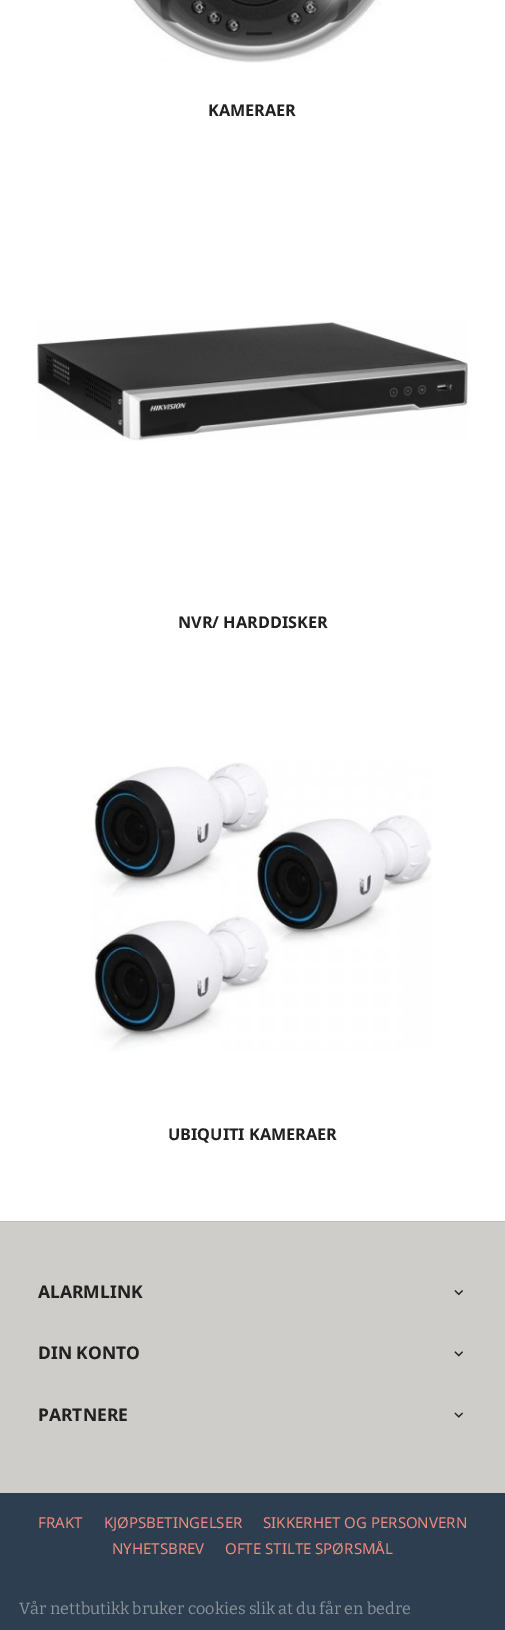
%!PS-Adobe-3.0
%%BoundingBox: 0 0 505 1630
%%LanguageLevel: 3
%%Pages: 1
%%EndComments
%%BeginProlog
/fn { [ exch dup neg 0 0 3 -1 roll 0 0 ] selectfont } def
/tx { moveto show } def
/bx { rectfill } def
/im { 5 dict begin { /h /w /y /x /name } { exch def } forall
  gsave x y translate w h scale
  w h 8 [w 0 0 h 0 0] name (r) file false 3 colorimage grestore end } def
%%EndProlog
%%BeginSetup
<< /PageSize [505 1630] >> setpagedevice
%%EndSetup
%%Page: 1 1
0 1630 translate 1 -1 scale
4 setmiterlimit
1 setgray
0 0 505 1630 bx
(image0.raw) 132 0 249 63 im
/NotoSans-Bold 16.25 fn
0.129 setgray
(KAMERAER) 208 116 tx
(image1.raw) 37 321 431 120 im
(NVR/ HARDDISKER) 178 628 tx
(image2.raw) 91 762 341 290 im
(UBIQUITI KAMERAER) 168 1140 tx
0.812 0.804 0.788 setrgbcolor
0 1222 505 271 bx
0.749 0.745 0.729 setrgbcolor
0 1221 505 1 bx
/NotoSans-Bold 17.5 fn
0.129 setgray
(ALARMLINK) 38 1298 tx
(image3.raw) 454 1290 9 6 im
(DIN KONTO) 38 1359 tx
(image4.raw) 454 1351 9 6 im
(PARTNERE) 38 1421 tx
(image5.raw) 454 1412 9 6 im
0.173 0.243 0.314 setrgbcolor
0 1493 505 137 bx
/NotoSans-Regular 15 fn
0.937 0.545 0.502 setrgbcolor
(FRAKT) 38 1528 tx
(KJØPSBETINGELSER) 104 1528 tx
(SIKKERHET OG PERSONVERN) 263 1528 tx
(NYHETSBREV) 112 1554 tx
(OFTE STILTE SPØRSMÅL) 225 1554 tx
/Bitter-Regular 16.25 fn
0.549 0.576 0.604 setrgbcolor
(Vår nettbutikk bruker cookies slik at du får en bedre) 19 1614 tx
showpage
%%EOF
